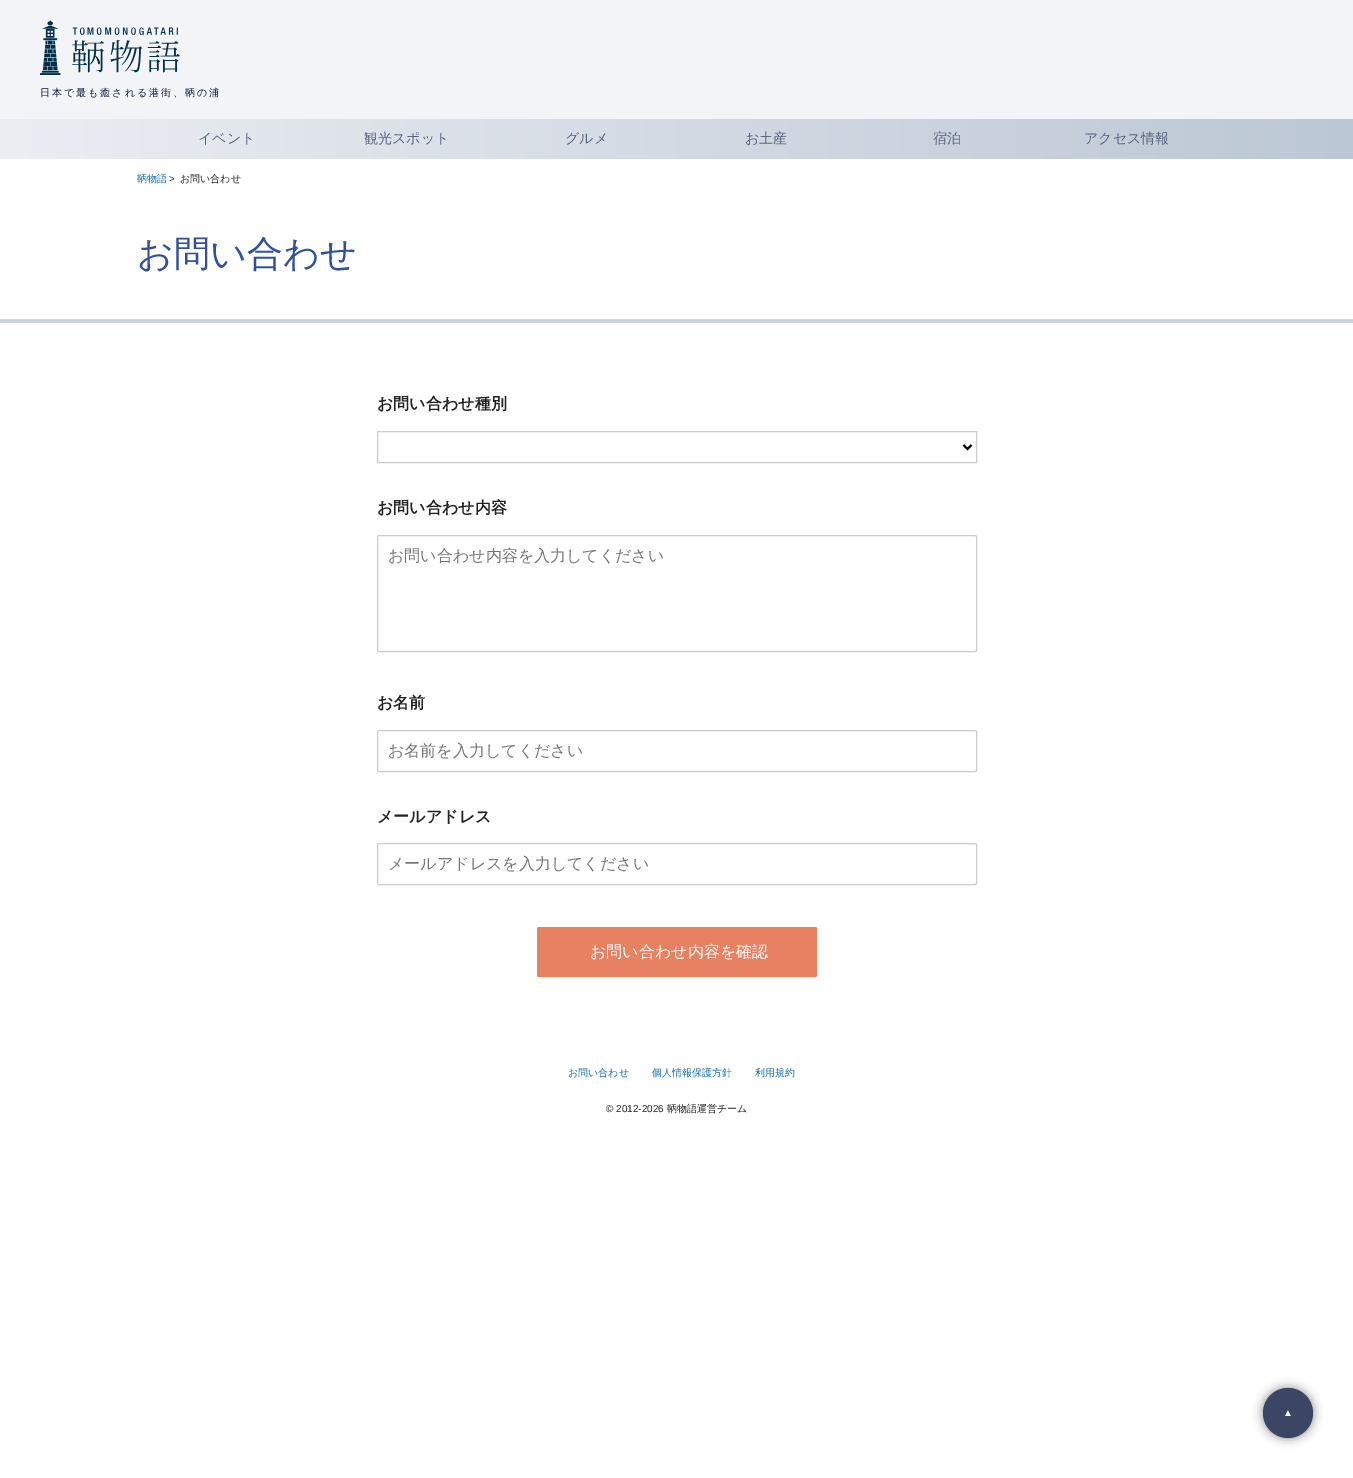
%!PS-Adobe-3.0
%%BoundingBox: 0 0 1353 1478
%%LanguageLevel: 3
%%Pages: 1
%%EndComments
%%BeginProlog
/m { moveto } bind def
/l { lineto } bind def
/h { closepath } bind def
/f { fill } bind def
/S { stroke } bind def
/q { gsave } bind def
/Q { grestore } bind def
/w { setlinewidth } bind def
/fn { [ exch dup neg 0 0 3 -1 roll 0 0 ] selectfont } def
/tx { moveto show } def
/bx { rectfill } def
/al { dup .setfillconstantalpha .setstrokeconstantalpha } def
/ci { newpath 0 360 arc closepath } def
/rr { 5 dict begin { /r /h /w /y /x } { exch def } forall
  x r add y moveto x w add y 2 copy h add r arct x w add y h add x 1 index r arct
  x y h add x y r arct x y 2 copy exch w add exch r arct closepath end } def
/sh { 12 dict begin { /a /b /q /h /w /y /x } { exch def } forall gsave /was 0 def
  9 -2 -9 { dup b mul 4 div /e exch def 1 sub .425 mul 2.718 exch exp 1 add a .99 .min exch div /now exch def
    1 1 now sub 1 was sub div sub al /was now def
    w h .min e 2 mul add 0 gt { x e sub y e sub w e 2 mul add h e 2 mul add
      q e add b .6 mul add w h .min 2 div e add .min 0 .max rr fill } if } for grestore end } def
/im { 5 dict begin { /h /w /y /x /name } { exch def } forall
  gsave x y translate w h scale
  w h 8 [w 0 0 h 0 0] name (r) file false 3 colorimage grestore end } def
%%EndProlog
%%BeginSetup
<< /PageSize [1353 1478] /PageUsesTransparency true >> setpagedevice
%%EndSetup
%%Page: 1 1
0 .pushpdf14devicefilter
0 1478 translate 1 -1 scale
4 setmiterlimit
1 setgray
0 0 1353 1478 bx
0.949 0.957 0.969 setrgbcolor
0 0 1353 119 bx
(image0.raw) 40 20 140 55 im
/WenQuanYiZenHei-Medium 10 fn
0.039 0.094 0.247 setrgbcolor
40 96 m 2 0 (日本で最も癒される港街、鞆の浦) ashow
q 0 119 m 1353 119 l 1353 159 l 0 159 l h clip newpath
<< /ShadingType 2 /ColorSpace /DeviceRGB /Coords [0 139 1353 139] /Extend [true true] /Function << /FunctionType 2 /Domain [0 1] /C0 [0.922 0.933 0.953] /C1 [0.737 0.78 0.835] /N 1 >> >> shfill Q
/WenQuanYiZenHei-Medium 14 fn
0.341 0.388 0.498 setrgbcolor
(イベント) 198 143 tx
(観光スポット) 364 143 tx
(グルメ) 565 143 tx
(お土産) 745 143 tx
(宿泊) 933 143 tx
(アクセス情報) 1084 143 tx
/WenQuanYiZenHei-Medium 10 fn
0.075 0.42 0.686 setrgbcolor
(鞆物語) 137 182 tx
/LiberationSans-Regular 10 fn
0.133 setgray
(>) 169 182 tx
/WenQuanYiZenHei-Medium 10 fn
(お問い合わせ) 180 182 tx
0.8 0.831 0.875 setrgbcolor
0 319 1353 4 bx
/WenQuanYiZenHei-Medium 36 fn
0.188 0.314 0.608 setrgbcolor
(お問い合わせ) 137 266 tx
/WenQuanYiZenHei-Bold 16 fn
0.133 setgray
(お問い合わせ種別) 377 409 tx
0.8 setgray
377.5 431.5 599 31 rectstroke
0 setgray
2 w
963.5 445 m 967.5 449 l 971.5 445 l S
0.133 setgray
(お問い合わせ内容) 377 513 tx
0.8 setgray
1 w
377.5 535.5 599 116 1.5 rr S
/WenQuanYiZenHei-Medium 16 fn
0.459 setgray
(お問い合わせ内容を入力してください) 388 561 tx
/WenQuanYiZenHei-Bold 16 fn
0.133 setgray
(お名前) 377 708 tx
0.8 setgray
377.5 730.5 599 41 1.5 rr S
/WenQuanYiZenHei-Medium 16 fn
0.459 setgray
(お名前を入力してください) 388 756 tx
/WenQuanYiZenHei-Bold 16 fn
0.133 setgray
(メールアドレス) 377 822 tx
0.8 setgray
377.5 843.5 599 41 1.5 rr S
/WenQuanYiZenHei-Medium 16 fn
0.459 setgray
(メールアドレスを入力してください) 388 869 tx
0.906 0.506 0.38 setrgbcolor
537 927 280 50 2 rr f
1 setgray
(お問い合わせ内容を確認) 590 957 tx
/WenQuanYiZenHei-Medium 10 fn
0.075 0.42 0.686 setrgbcolor
(お問い合わせ) 568 1076 tx
(個人情報保護方針) 652 1076 tx
(利用規約) 755 1076 tx
/LiberationSans-Regular 10 fn
0.133 setgray
(© 2012-2026) 606 1112 tx
/WenQuanYiZenHei-Medium 10 fn
(鞆物語運営チーム) 667 1112 tx
0.2 setgray
1263 1388 50 50 25 5 0.6 sh
0.231 0.275 0.396 setrgbcolor
1288 1413 25 ci f
/LiberationSans-Regular 10 fn
1 setgray
(▲) 1283 1416 tx
.poppdf14devicefilter showpage
%%EOF
